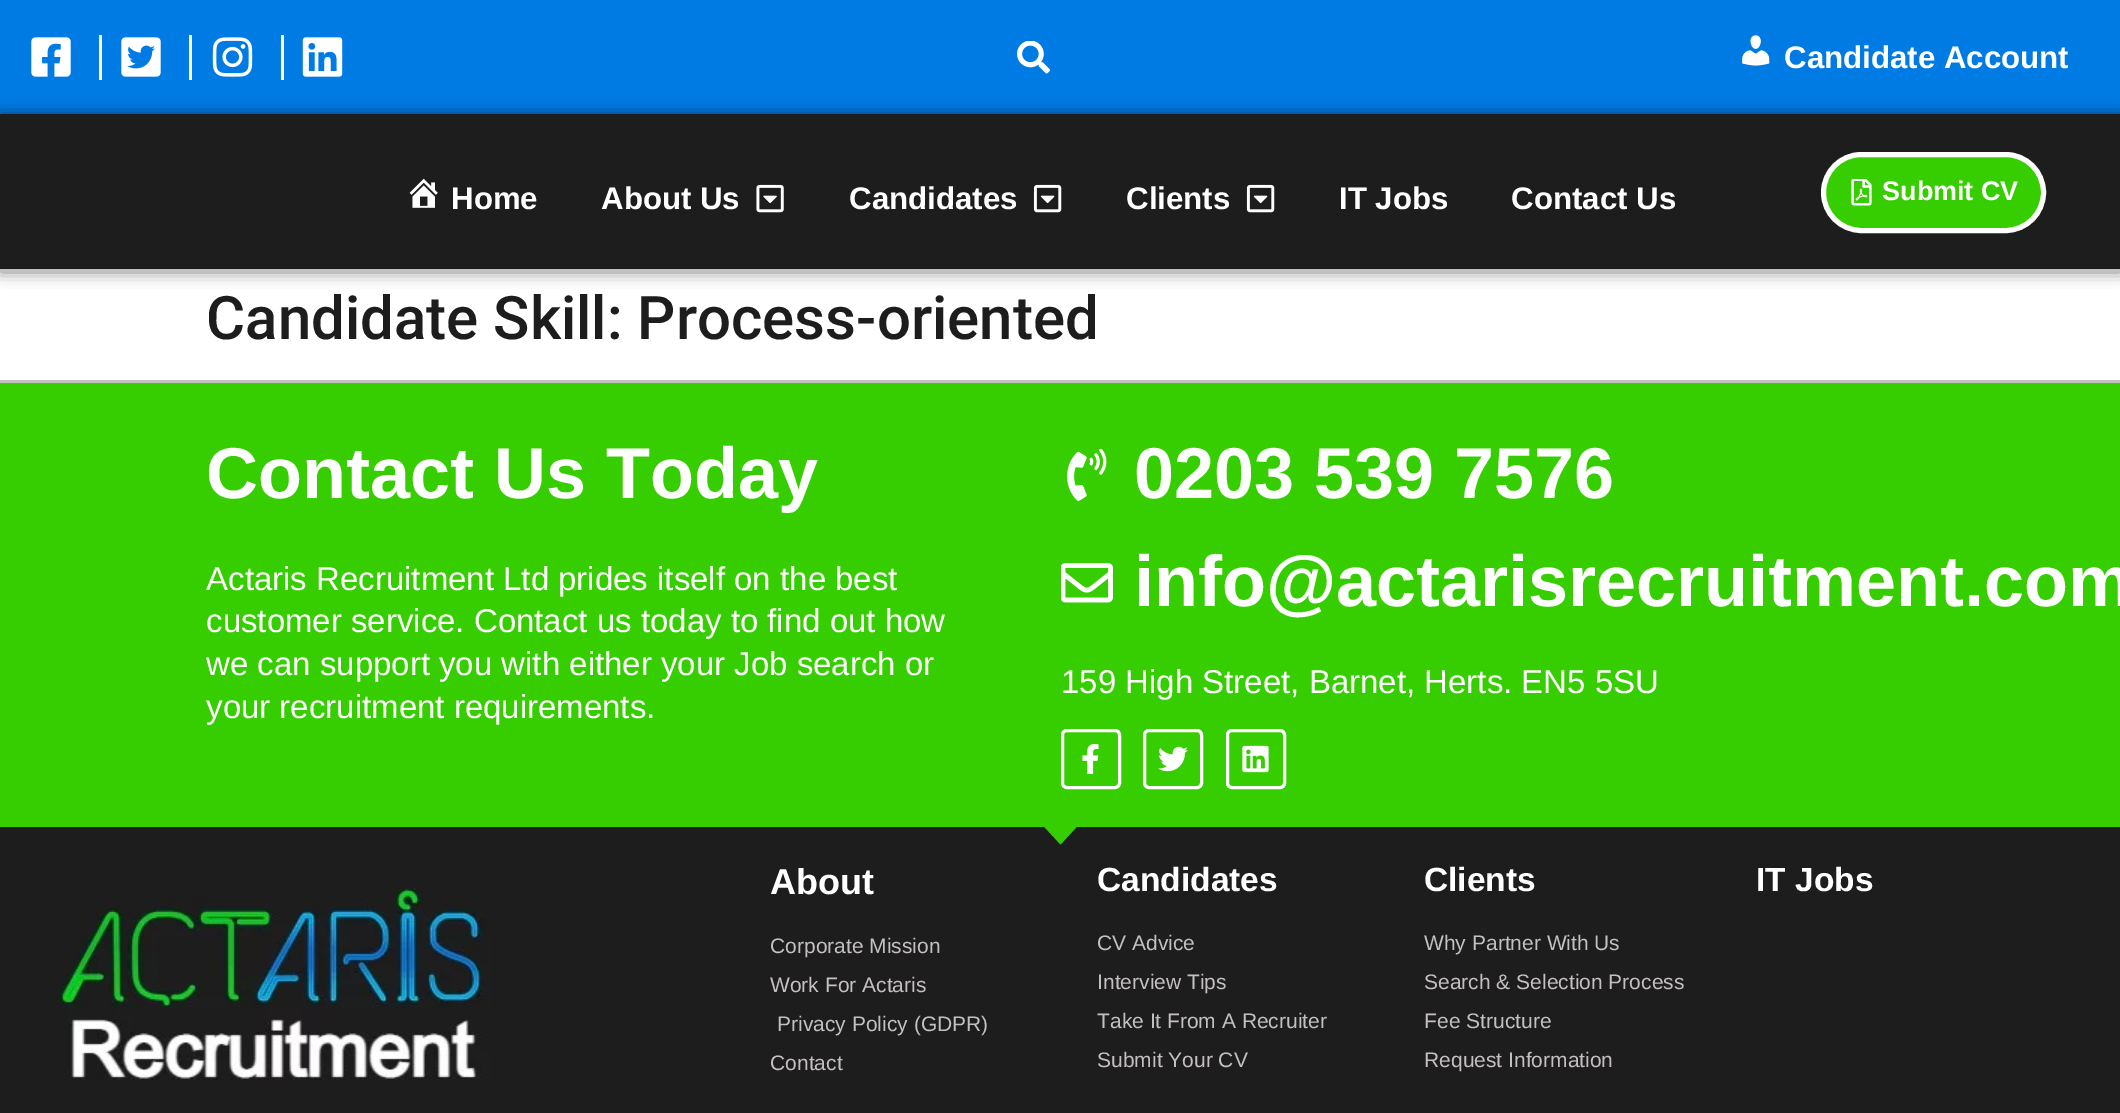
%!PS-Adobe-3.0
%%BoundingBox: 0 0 2120 1113
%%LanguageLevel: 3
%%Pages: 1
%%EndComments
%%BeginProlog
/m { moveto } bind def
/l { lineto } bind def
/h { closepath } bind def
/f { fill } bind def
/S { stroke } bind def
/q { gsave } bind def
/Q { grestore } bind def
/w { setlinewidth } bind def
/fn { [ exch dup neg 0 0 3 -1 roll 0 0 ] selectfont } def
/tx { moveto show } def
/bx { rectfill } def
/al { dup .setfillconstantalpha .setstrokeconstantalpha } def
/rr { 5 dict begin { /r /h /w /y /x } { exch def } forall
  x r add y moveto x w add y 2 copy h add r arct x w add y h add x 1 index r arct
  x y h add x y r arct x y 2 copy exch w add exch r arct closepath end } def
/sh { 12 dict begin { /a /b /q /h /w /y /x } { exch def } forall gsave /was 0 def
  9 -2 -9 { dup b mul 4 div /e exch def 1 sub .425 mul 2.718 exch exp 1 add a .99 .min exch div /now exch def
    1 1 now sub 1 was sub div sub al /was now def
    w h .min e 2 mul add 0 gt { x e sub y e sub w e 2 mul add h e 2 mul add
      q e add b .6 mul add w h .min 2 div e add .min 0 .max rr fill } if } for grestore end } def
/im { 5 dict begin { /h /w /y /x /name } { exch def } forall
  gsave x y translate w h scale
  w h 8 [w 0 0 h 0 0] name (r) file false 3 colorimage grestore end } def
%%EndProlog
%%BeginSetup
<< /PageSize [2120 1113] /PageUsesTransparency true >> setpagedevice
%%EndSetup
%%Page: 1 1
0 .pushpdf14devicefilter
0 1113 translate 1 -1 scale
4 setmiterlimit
1 setgray
0 0 2120 1113 bx
0 0.482 0.894 setrgbcolor
0 0 2120 114 bx
(image0.raw) 31 37 40 40 im
1 setgray
99 35 3 45 bx
(image1.raw) 121 37 40 40 im
189 35 3 45 bx
(image2.raw) 212 37 41 40 im
281 35 3 45 bx
(image3.raw) 302 37 41 40 im
(image4.raw) 1017 41 33 33 im
(image5.raw) 1742 35 28 31 im
/LiberationSans-Bold 31.25 fn
(Candidate Account) 1784 68 tx
0 setgray
0 114 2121 158 0 7.5 0.5 sh
0.114 setgray
0 114 2120 155 bx
0.769 0.749 0.757 setrgbcolor
0 269 2120 3 bx
(image6.raw) 409 178 29 30 im
1 setgray
(Home) 451 209 tx
(About Us) 601 209 tx
(image7.raw) 756 184 28 29 im
(Candidates) 849 209 tx
(image8.raw) 1033 184 29 29 im
(Clients) 1126 209 tx
(image8.raw) 1246 184 29 29 im
(IT Jobs) 1339 209 tx
(Contact Us) 1511 209 tx
0.212 0.808 0 setrgbcolor
1823.5 154.5 220 76 38 rr q f Q
1 setgray
5 w
S
(image9.raw) 1851 179 21 27 im
/LiberationSans-Bold 27 fn
(Submit CV) 1882 200 tx
/Roboto-Medium 60 fn
0.114 setgray
(Candidate Skill: Process-oriented) 206 339 tx
0.212 0.808 0 setrgbcolor
0 383 2120 444 bx
0.769 0.749 0.757 setrgbcolor
0 380 2120 3 bx
/LiberationSans-Bold 72 fn
1 setgray
(Contact Us Today) 206 498 tx
/LiberationSans-Regular 33 fn
(Actaris Recruitment Ltd prides itself on the best) 206 590 tx
(customer service. Contact us today to find out how) 206 632 tx
(we can support you with either your Job search or) 206 675 tx
(your recruitment requirements.) 206 718 tx
(image10.raw) 1067 449 40 52 im
/LiberationSans-Bold 72 fn
(0203 539 7576) 1134 498 tx
(image11.raw) 1061 563 52 40 im
(info@actarisrecruitment.com) 1134 606 tx
/LiberationSans-Regular 33 fn
(159 High Street, Barnet, Herts. EN5 5SU) 1061 693 tx
3 w
1062.5 730.5 57 57 4.5 rr S
(image12.raw) 1082 744 17 30 im
1144.5 730.5 57 57 4.5 rr S
(image13.raw) 1158 746 30 26 im
1227.5 730.5 57 57 4.5 rr S
(image14.raw) 1242 745 27 28 im
0.114 setgray
0 827 2120 286 bx
0.212 0.808 0 setrgbcolor
1060.5 844.5 m 1042.5 825 l 1078.5 825 l h f
(image15.raw) 60 887 431 193 im
/LiberationSans-Bold 36 fn
1 setgray
(About) 770 894 tx
/LiberationSans-Regular 21 fn
0.769 0.749 0.757 setrgbcolor
(Corporate Mission) 770 953 tx
(Work For Actaris) 770 992 tx
(Privacy Policy \(GDPR\)) 777 1031 tx
(Contact) 770 1070 tx
/LiberationSans-Bold 33.5 fn
1 setgray
(Candidates) 1097 891 tx
/LiberationSans-Regular 21 fn
0.769 0.749 0.757 setrgbcolor
(CV Advice) 1097 950 tx
(Interview Tips) 1097 989 tx
(Take It From A Recruiter) 1097 1028 tx
(Submit Your CV) 1097 1067 tx
/LiberationSans-Bold 33.5 fn
1 setgray
(Clients) 1424 891 tx
/LiberationSans-Regular 21 fn
0.769 0.749 0.757 setrgbcolor
(Why Partner With Us) 1424 950 tx
(Search & Selection Process) 1424 989 tx
(Fee Structure) 1424 1028 tx
(Request Information) 1424 1067 tx
/LiberationSans-Bold 33.5 fn
1 setgray
(IT Jobs) 1756 891 tx
.poppdf14devicefilter showpage
%%EOF
